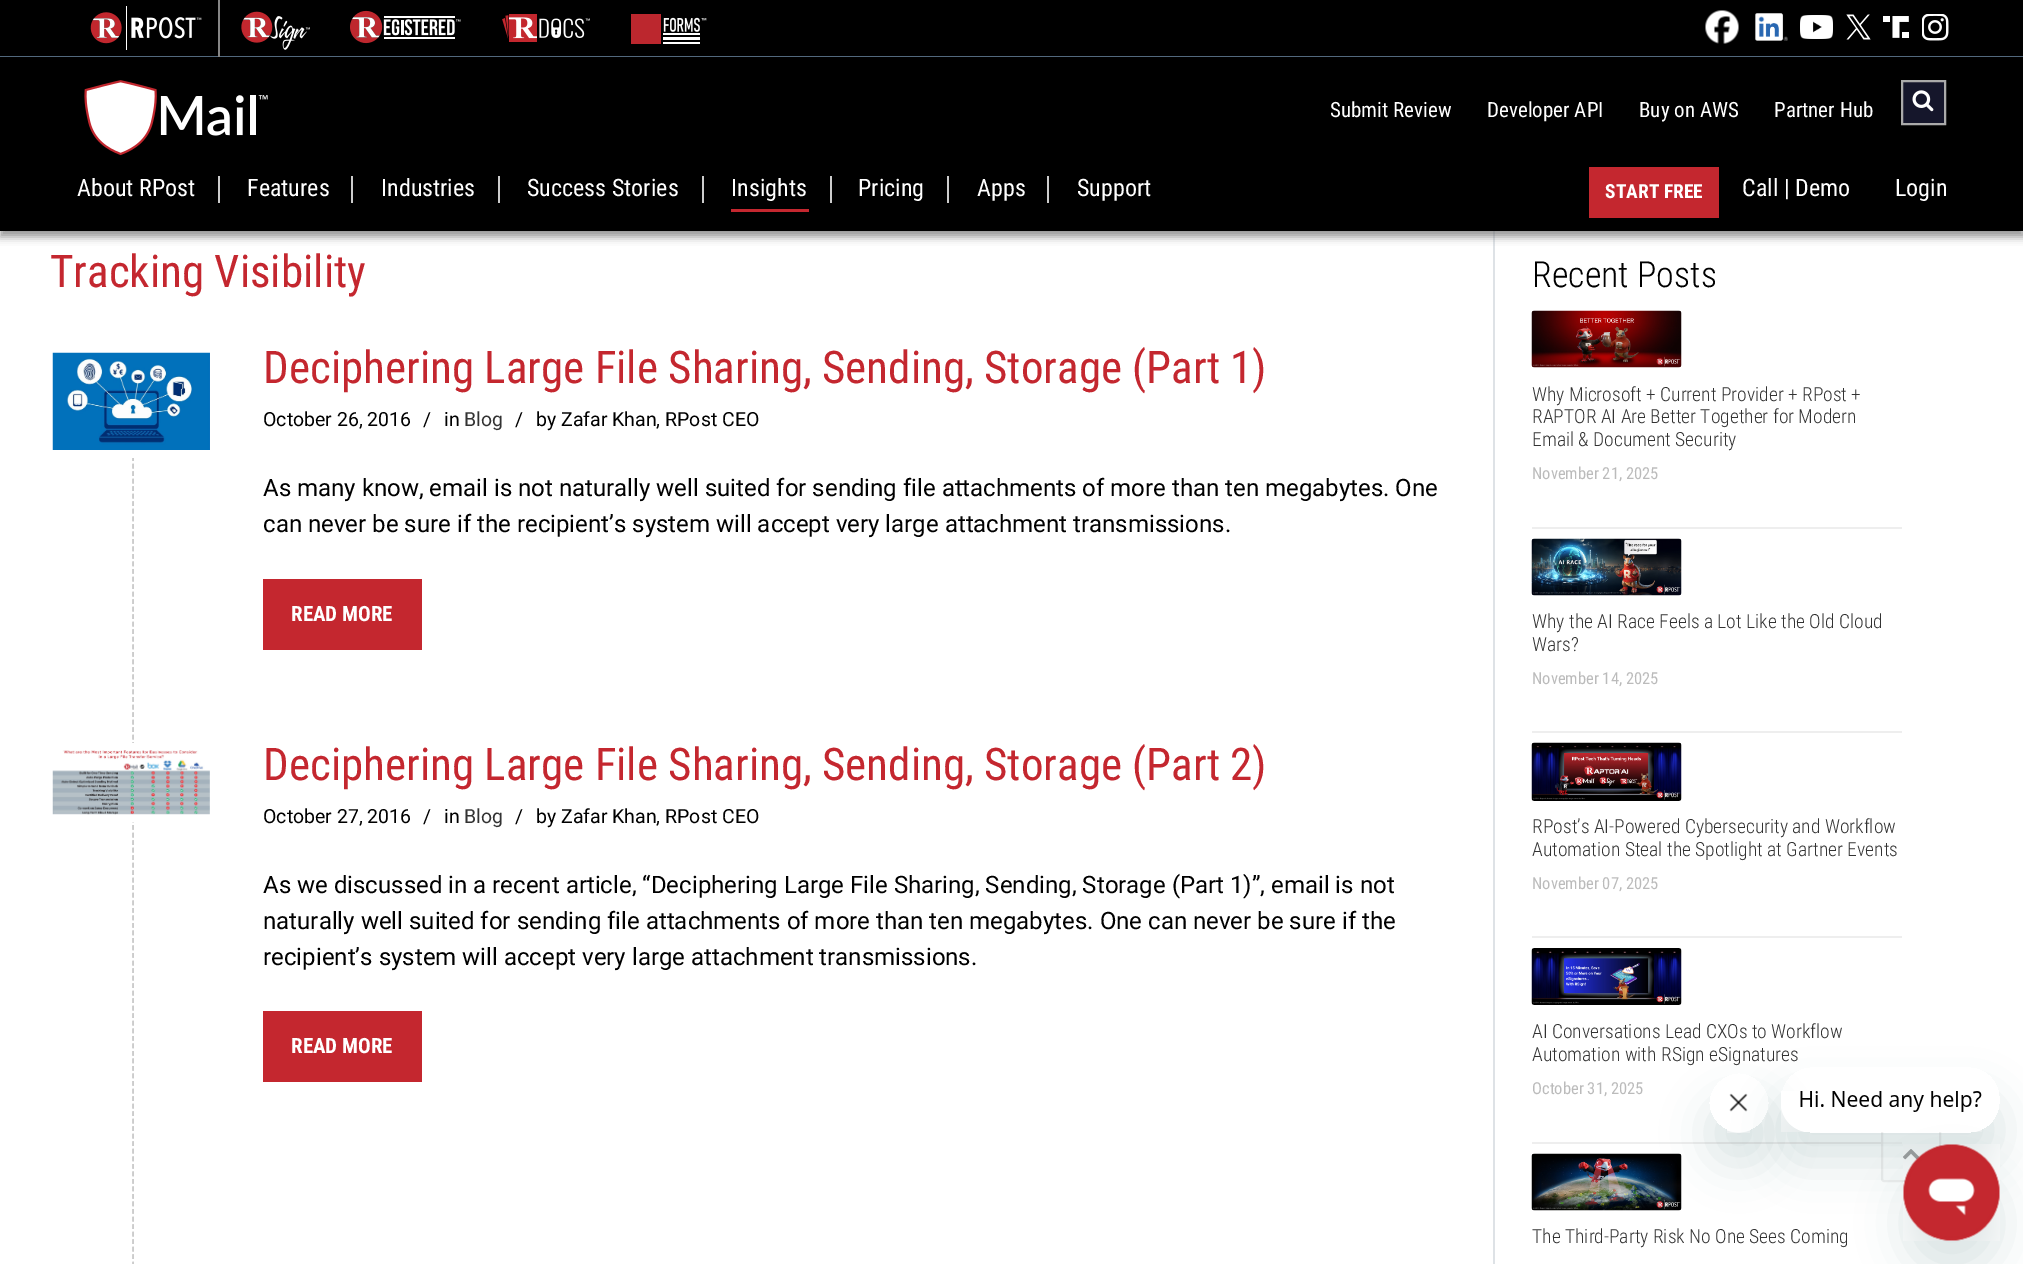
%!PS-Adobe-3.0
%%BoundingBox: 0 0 2023 1264
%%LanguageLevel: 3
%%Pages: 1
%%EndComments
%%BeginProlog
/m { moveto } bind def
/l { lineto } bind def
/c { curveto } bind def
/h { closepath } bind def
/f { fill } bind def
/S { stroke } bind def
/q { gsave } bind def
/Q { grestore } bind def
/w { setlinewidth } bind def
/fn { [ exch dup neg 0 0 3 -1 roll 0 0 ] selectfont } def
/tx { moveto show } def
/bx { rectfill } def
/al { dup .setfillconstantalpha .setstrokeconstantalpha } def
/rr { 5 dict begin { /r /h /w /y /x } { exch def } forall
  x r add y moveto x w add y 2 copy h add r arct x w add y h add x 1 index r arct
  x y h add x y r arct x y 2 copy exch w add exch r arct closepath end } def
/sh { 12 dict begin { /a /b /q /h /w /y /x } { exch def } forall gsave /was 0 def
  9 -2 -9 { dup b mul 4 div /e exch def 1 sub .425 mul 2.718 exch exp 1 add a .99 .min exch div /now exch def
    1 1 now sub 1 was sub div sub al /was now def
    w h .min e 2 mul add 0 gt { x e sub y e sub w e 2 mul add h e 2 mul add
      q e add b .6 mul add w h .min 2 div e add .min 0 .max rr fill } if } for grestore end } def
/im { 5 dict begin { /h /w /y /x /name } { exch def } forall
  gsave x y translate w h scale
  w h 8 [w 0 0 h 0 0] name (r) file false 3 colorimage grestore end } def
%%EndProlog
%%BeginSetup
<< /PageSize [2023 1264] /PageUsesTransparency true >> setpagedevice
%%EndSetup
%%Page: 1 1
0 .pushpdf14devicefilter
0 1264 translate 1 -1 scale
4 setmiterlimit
1 setgray
0 0 2023 1264 bx
0.871 0.886 0.902 setrgbcolor
1493 231 2 1033 bx
0.4 setgray
0 -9 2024 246 0 4 0.67 sh
0 setgray
0 0 2023 56 bx
0.322 0.408 0.49 setrgbcolor
0 56 2023 1 bx
0.525 setgray
218 0 2 57 bx
(image0.raw) 90 6 112 44 im
(image1.raw) 241 11 69 39 im
(image2.raw) 350 10 111 34 im
(image3.raw) 502 14 88 28 im
(image4.raw) 631 14 76 30 im
(image5.raw) 1705 10 34 34 im
(image6.raw) 1755 13 33 28 im
(image7.raw) 1800 15 33 24 im
(image8.raw) 1846 14 25 26 im
(image9.raw) 1883 16 26 22 im
(image10.raw) 1922 14 27 27 im
0 setgray
0 57 2023 174 bx
(image11.raw) 84 80 184 76 im
/RobotoCondensed-Regular 21 fn
1 setgray
(Submit Review) 1330 117 tx
(Developer API) 1487 117 tx
(Buy on AWS) 1639 117 tx
(Partner Hub) 1774 117 tx
0.082 0.086 0.169 setrgbcolor
1902 81 m 1945 81 l 1945 124 l 1902 124 l h q f Q
0.667 setgray
2 w
S
(image12.raw) 1912 90 22 22 im
0.8 setgray
218 176 2 27 bx
/RobotoCondensed-Regular 24 fn
1 setgray
(About RPost) 77 196 tx
0.8 setgray
351 176 2 27 bx
1 setgray
(Features) 247 196 tx
0.8 setgray
498 176 2 27 bx
1 setgray
(Industries) 381 196 tx
0.8 setgray
702 176 2 27 bx
1 setgray
(Success Stories) 527 196 tx
0.8 setgray
830 176 2 27 bx
1 setgray
(Insights) 731 196 tx
0.769 0.153 0.184 setrgbcolor
731 209 78 3 bx
0.8 setgray
947 176 2 27 bx
1 setgray
(Pricing) 858 196 tx
0.8 setgray
1047 176 2 27 bx
1 setgray
(Apps) 977 196 tx
(Support) 1077 196 tx
0.769 0.153 0.184 setrgbcolor
1589 167 130 51 bx
/RobotoCondensed-Bold 19.5 fn
1 setgray
(START FREE) 1605 198 tx
/RobotoCondensed-Regular 24 fn
(Call | Demo) 1742 196 tx
(Login) 1895 196 tx
/RobotoCondensed-Regular 45 fn
0.769 0.153 0.184 setrgbcolor
(Tracking Visibility) 50 287 tx
0.8 setgray
1.5 w
[4.5 3.03] 0 setdash
133 381 m 133 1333.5 l S
133 381 m 133 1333.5 l S
1 setgray
45 345 173 113 6 rr f
(image13.raw) 52 352 158 98 im
0.769 0.153 0.184 setrgbcolor
(Deciphering Large File Sharing, Sending, Storage \(Part 1\)) 263 383 tx
/Roboto-Regular 19.5 fn
0 setgray
(October 26, 2016) 263 426 tx
(/) 423 426 tx
(in) 444 426 tx
0.2 setgray
(Blog) 464 426 tx
0 setgray
(/) 515 426 tx
(by Zafar Khan, RPost CEO) 536 426 tx
/Roboto-Regular 24 fn
(As many know, email is not naturally well suited for sending file attachments of more than ten megabytes. One) 263 496 tx
(can never be sure if the recipient’s system will accept very large attachment transmissions.) 263 532 tx
0.769 0.153 0.184 setrgbcolor
263 579 159 71 bx
/RobotoCondensed-Bold 21 fn
1 setgray
(READ MORE) 291 621 tx
45 743 173 79 6 rr f
(image14.raw) 52 750 158 65 im
/RobotoCondensed-Regular 45 fn
0.769 0.153 0.184 setrgbcolor
(Deciphering Large File Sharing, Sending, Storage \(Part 2\)) 263 780 tx
/Roboto-Regular 19.5 fn
0 setgray
(October 27, 2016) 263 823 tx
(/) 423 823 tx
(in) 444 823 tx
0.2 setgray
(Blog) 464 823 tx
0 setgray
(/) 515 823 tx
(by Zafar Khan, RPost CEO) 536 823 tx
/Roboto-Regular 24 fn
(As we discussed in a recent article, “Deciphering Large File Sharing, Sending, Storage \(Part 1\)”, email is not) 263 893 tx
(naturally well suited for sending file attachments of more than ten megabytes. One can never be sure if the) 263 929 tx
(recipient’s system will accept very large attachment transmissions.) 263 965 tx
0.769 0.153 0.184 setrgbcolor
263 1011 159 71 bx
/RobotoCondensed-Bold 21 fn
1 setgray
(READ MORE) 291 1053 tx
/RobotoCondensed-Light 36 fn
0 setgray
(Recent Posts) 1532 287 tx
0.933 setgray
1532 527 370 2 bx
(image15.raw) 1531 310 151 58 im
/RobotoCondensed-Light 19.5 fn
0.2 setgray
(Why Microsoft + Current Provider + RPost +) 1532 401 tx
(RAPTOR AI Are Better Together for Modern) 1532 423 tx
(Email & Document Security) 1532 446 tx
/RobotoCondensed-Regular 16.5 fn
0.733 setgray
(November 21, 2025) 1532 479 tx
0.933 setgray
1532 731 370 2 bx
(image16.raw) 1531 538 151 58 im
/RobotoCondensed-Light 19.5 fn
0.2 setgray
(Why the AI Race Feels a Lot Like the Old Cloud) 1532 628 tx
(Wars?) 1532 651 tx
/RobotoCondensed-Regular 16.5 fn
0.733 setgray
(November 14, 2025) 1532 684 tx
0.933 setgray
1532 936 370 2 bx
(image17.raw) 1531 742 151 59 im
/RobotoCondensed-Light 19.5 fn
0.2 setgray
(RPost’s AI-Powered Cybersecurity and Workflow) 1532 833 tx
(Automation Steal the Spotlight at Gartner Events) 1532 856 tx
/RobotoCondensed-Regular 16.5 fn
0.733 setgray
(November 07, 2025) 1532 889 tx
0.933 setgray
1532 1142 370 2 bx
(image18.raw) 1531 948 151 57 im
/RobotoCondensed-Light 19.5 fn
0.2 setgray
(AI Conversations Lead CXOs to Workflow) 1532 1038 tx
(Automation with RSign eSignatures) 1532 1061 tx
/RobotoCondensed-Regular 16.5 fn
0.733 setgray
(October 31, 2025) 1532 1094 tx
(image19.raw) 1531 1153 151 58 im
/RobotoCondensed-Light 19.5 fn
0.2 setgray
(The Third-Party Risk No One Sees Coming) 1532 1243 tx
q
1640 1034 m 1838 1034 l 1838 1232 l 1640 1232 l h 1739 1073 m 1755.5 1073 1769 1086.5 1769 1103 c 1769 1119.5 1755.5 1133 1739 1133 c 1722.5 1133 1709 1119.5 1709 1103 c 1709 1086.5 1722.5 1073 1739 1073 c h eoclip newpath
0.09 0.286 0.302 setrgbcolor
1709 1103 60 60 30 22.5 0.15 sh
Q
(image21.raw) 1727 1093 23 40 im
0.6 al
1 setgray
1881 1122 60 60 3 rr f
0.902 setgray
2 w
[] 0 setdash
1882 1123 58 58 2 rr S
1 al
(image23.raw) 1903 1149 16 11 im
q
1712 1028 m 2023 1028 l 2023 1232 l 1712 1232 l h 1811 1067 m 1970 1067 l 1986.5 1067 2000 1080.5 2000 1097 c 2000 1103 l 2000 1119.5 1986.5 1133 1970 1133 c 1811 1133 l 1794.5 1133 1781 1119.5 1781 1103 c 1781 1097 l 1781 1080.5 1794.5 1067 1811 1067 c h eoclip newpath
0.09 0.286 0.302 setrgbcolor
1781 1097 219 66 30 22.5 0.15 sh
Q
(image20.raw) 1781 1091 201 41 im
0.09 0.286 0.302 setrgbcolor
1904 1175 96 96 48 22.5 0.15 sh
(image22.raw) 1903 1144 97 97 im
.poppdf14devicefilter showpage
%%EOF
